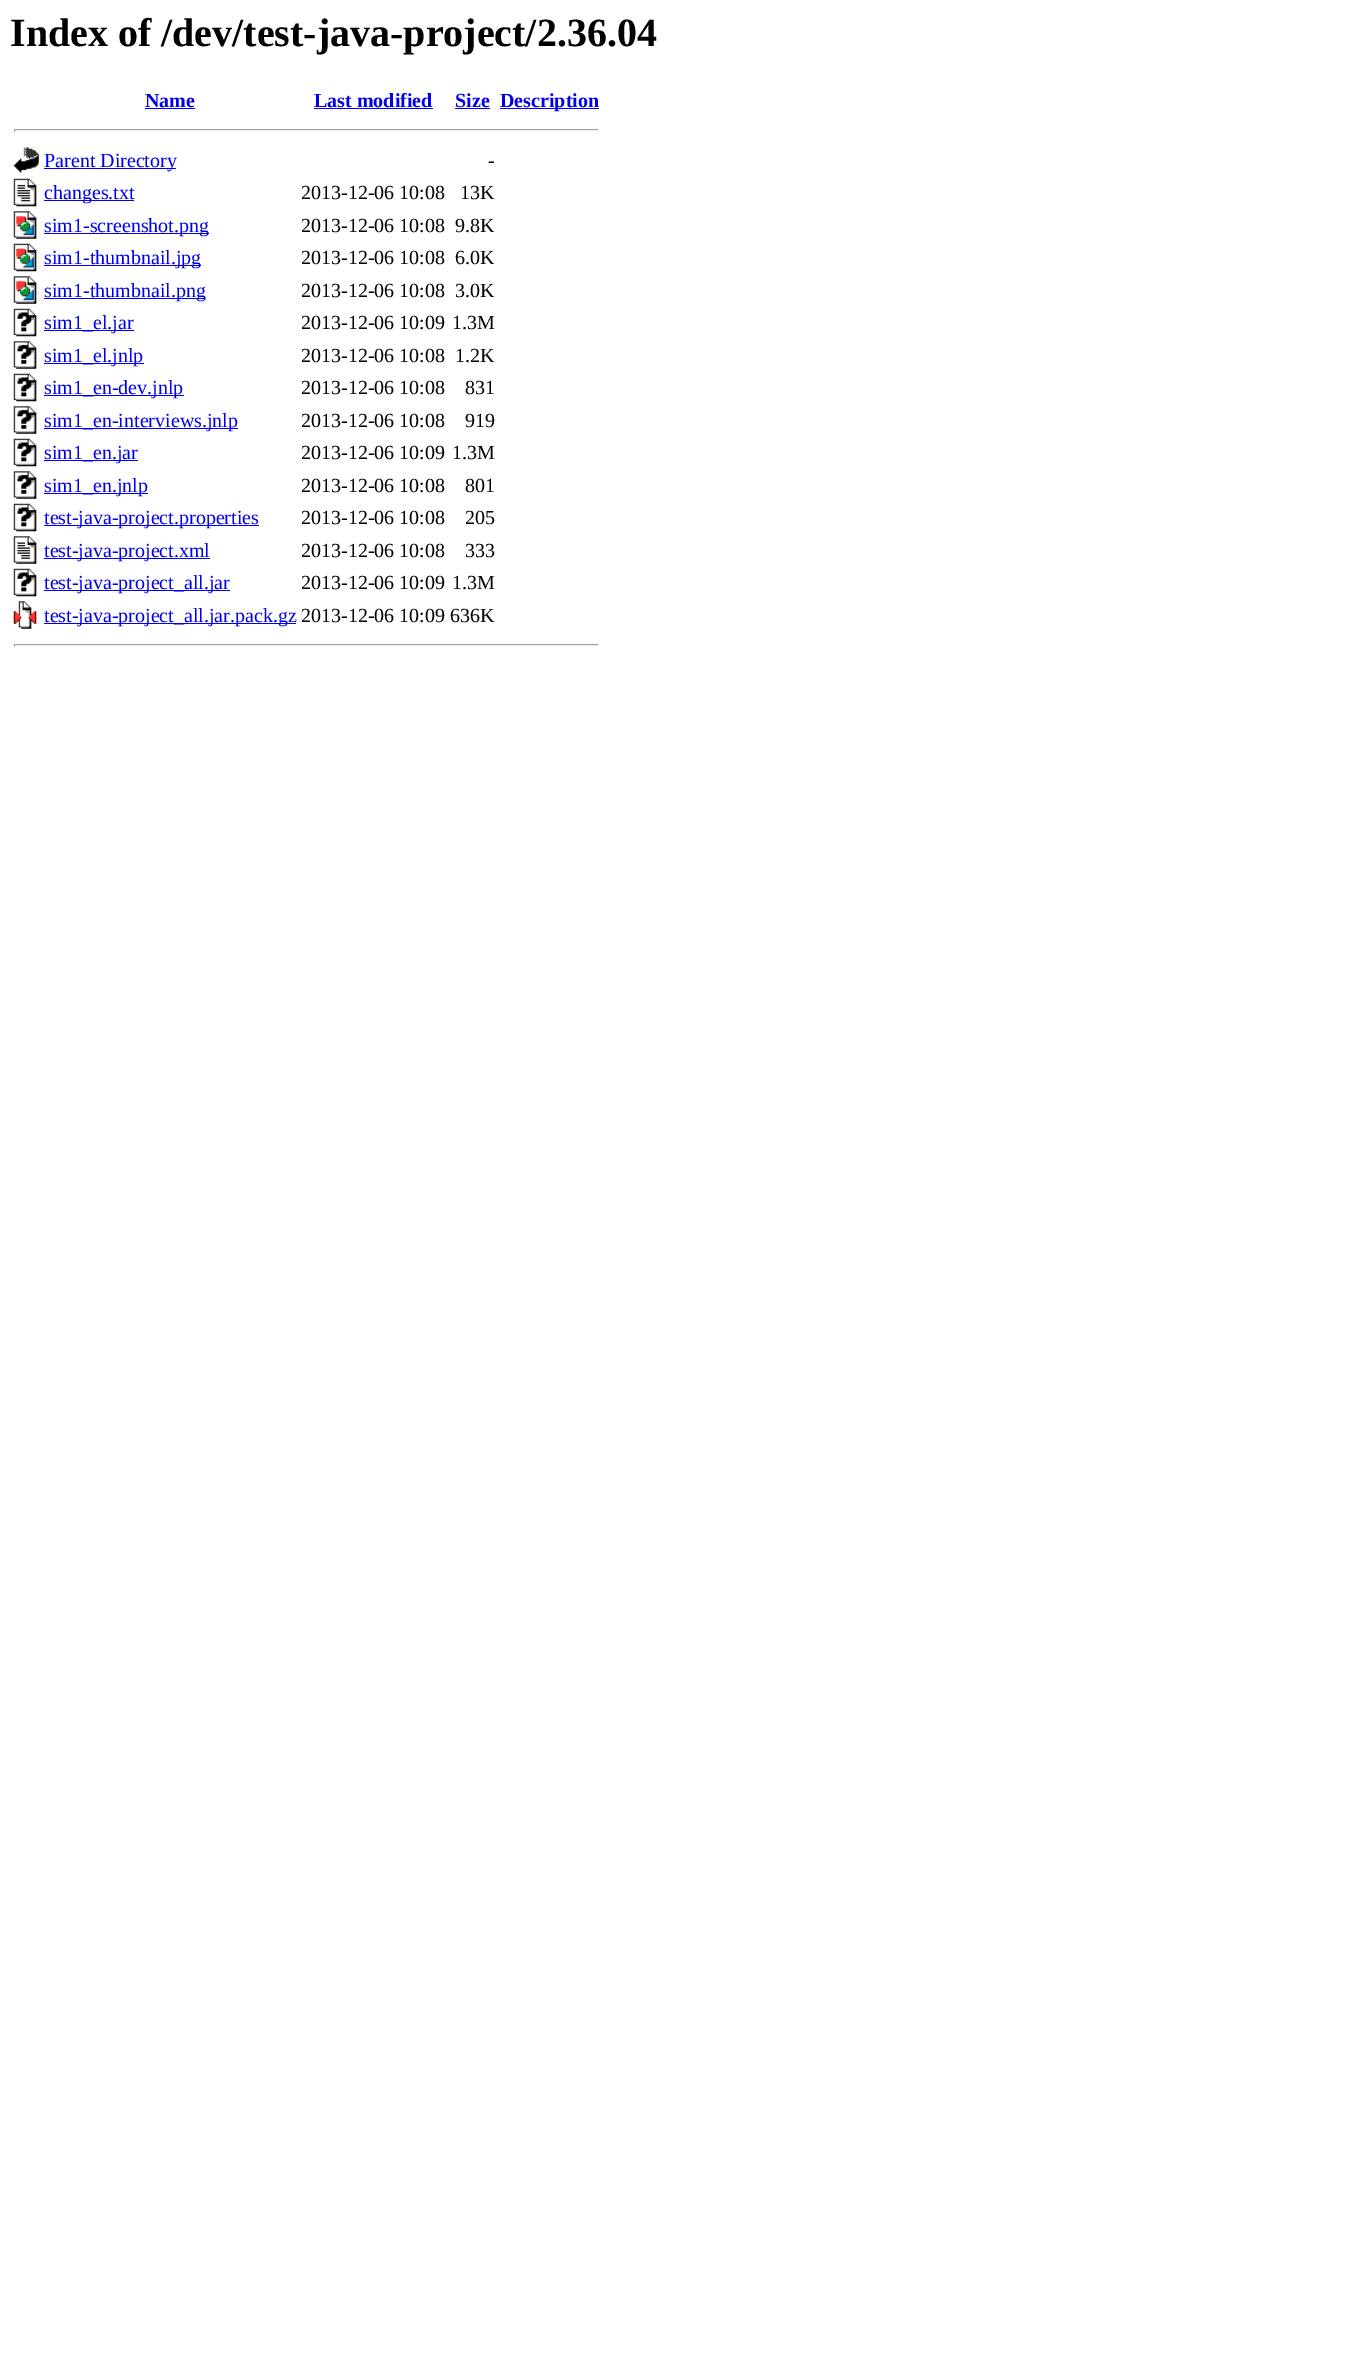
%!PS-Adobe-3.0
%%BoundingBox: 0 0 1353 2374
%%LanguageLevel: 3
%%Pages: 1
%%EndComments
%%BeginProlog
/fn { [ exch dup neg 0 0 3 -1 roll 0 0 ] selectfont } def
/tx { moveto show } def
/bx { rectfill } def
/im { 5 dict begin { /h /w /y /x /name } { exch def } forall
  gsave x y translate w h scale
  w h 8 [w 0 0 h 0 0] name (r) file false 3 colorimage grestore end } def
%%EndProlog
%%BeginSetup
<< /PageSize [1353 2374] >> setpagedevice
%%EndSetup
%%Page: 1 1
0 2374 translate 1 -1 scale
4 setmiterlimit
1 setgray
0 0 1353 2374 bx
/LiberationSerif-Bold 40 fn
0 setgray
(Index of /dev/test-java-project/2.36.04) 10 46 tx
/LiberationSerif-Bold 20 fn
0 0 0.933 setrgbcolor
(Name) 145 107 tx
145 108 50 1 bx
(Last modified) 314 107 tx
314 108 119 1 bx
(Size) 455 107 tx
455 108 35 1 bx
500 108 99 1 bx
(Description) 500 107 tx
0.624 setgray
14 129 585 1 bx
0.933 setgray
598 129 1 3 bx
14 130 585 1 bx
0.624 setgray
14 129 1 3 bx
(image0.raw) 13 147 26 26 im
0 0 0.933 setrgbcolor
44 168 132 1 bx
/LiberationSerif-Regular 20 fn
(Parent Directory) 44 167 tx
0 setgray
(-) 488 167 tx
(image1.raw) 13 178 24 29 im
0 0 0.933 setrgbcolor
44 200 90 1 bx
(changes.txt) 44 199 tx
0 setgray
(2013-12-06 10:08) 301 199 tx
(13K) 460 199 tx
(image2.raw) 13 211 24 28 im
0 0 0.933 setrgbcolor
44 233 165 1 bx
(sim1-screenshot.png) 44 232 tx
0 setgray
(2013-12-06 10:08) 301 232 tx
(9.8K) 455 232 tx
(image3.raw) 13 243 24 29 im
0 0 0.933 setrgbcolor
44 265 157 1 bx
(sim1-thumbnail.jpg) 44 264 tx
0 setgray
(2013-12-06 10:08) 301 264 tx
(6.0K) 455 264 tx
(image4.raw) 13 276 24 28 im
0 0 0.933 setrgbcolor
44 298 161 1 bx
(sim1-thumbnail.png) 44 297 tx
0 setgray
(2013-12-06 10:08) 301 297 tx
(3.0K) 455 297 tx
(image5.raw) 13 308 24 29 im
0 0 0.933 setrgbcolor
44 330 90 1 bx
(sim1_el.jar) 44 329 tx
0 setgray
(2013-12-06 10:09) 301 329 tx
(1.3M) 452 329 tx
(image6.raw) 13 341 24 28 im
0 0 0.933 setrgbcolor
44 363 100 1 bx
(sim1_el.jnlp) 44 362 tx
0 setgray
(2013-12-06 10:08) 301 362 tx
(1.2K) 455 362 tx
(image5.raw) 13 373 24 29 im
0 0 0.933 setrgbcolor
44 395 140 1 bx
(sim1_en-dev.jnlp) 44 394 tx
0 setgray
(2013-12-06 10:08) 301 394 tx
(831) 465 394 tx
(image6.raw) 13 406 24 28 im
0 0 0.933 setrgbcolor
44 428 194 1 bx
(sim1_en-interviews.jnlp) 44 427 tx
0 setgray
(2013-12-06 10:08) 301 427 tx
(919) 465 427 tx
(image5.raw) 13 438 24 29 im
0 0 0.933 setrgbcolor
44 460 94 1 bx
(sim1_en.jar) 44 459 tx
0 setgray
(2013-12-06 10:09) 301 459 tx
(1.3M) 452 459 tx
(image6.raw) 13 471 24 28 im
0 0 0.933 setrgbcolor
44 493 104 1 bx
(sim1_en.jnlp) 44 492 tx
0 setgray
(2013-12-06 10:08) 301 492 tx
(801) 465 492 tx
(image5.raw) 13 503 24 29 im
0 0 0.933 setrgbcolor
44 525 215 1 bx
(test-java-project.properties) 44 524 tx
0 setgray
(2013-12-06 10:08) 301 524 tx
(205) 465 524 tx
(image7.raw) 13 536 24 28 im
0 0 0.933 setrgbcolor
44 558 166 1 bx
(test-java-project.xml) 44 557 tx
0 setgray
(2013-12-06 10:08) 301 557 tx
(333) 465 557 tx
(image5.raw) 13 568 24 29 im
0 0 0.933 setrgbcolor
44 590 186 1 bx
(test-java-project_all.jar) 44 589 tx
0 setgray
(2013-12-06 10:09) 301 589 tx
(1.3M) 452 589 tx
(image8.raw) 13 601 24 28 im
0 0 0.933 setrgbcolor
44 623 252 1 bx
(test-java-project_all.jar.pack.gz) 44 622 tx
0 setgray
(2013-12-06 10:09 636K) 301 622 tx
0.624 setgray
14 644 585 1 bx
0.933 setgray
598 644 1 3 bx
14 645 585 1 bx
0.624 setgray
14 644 1 3 bx
showpage
%%EOF
